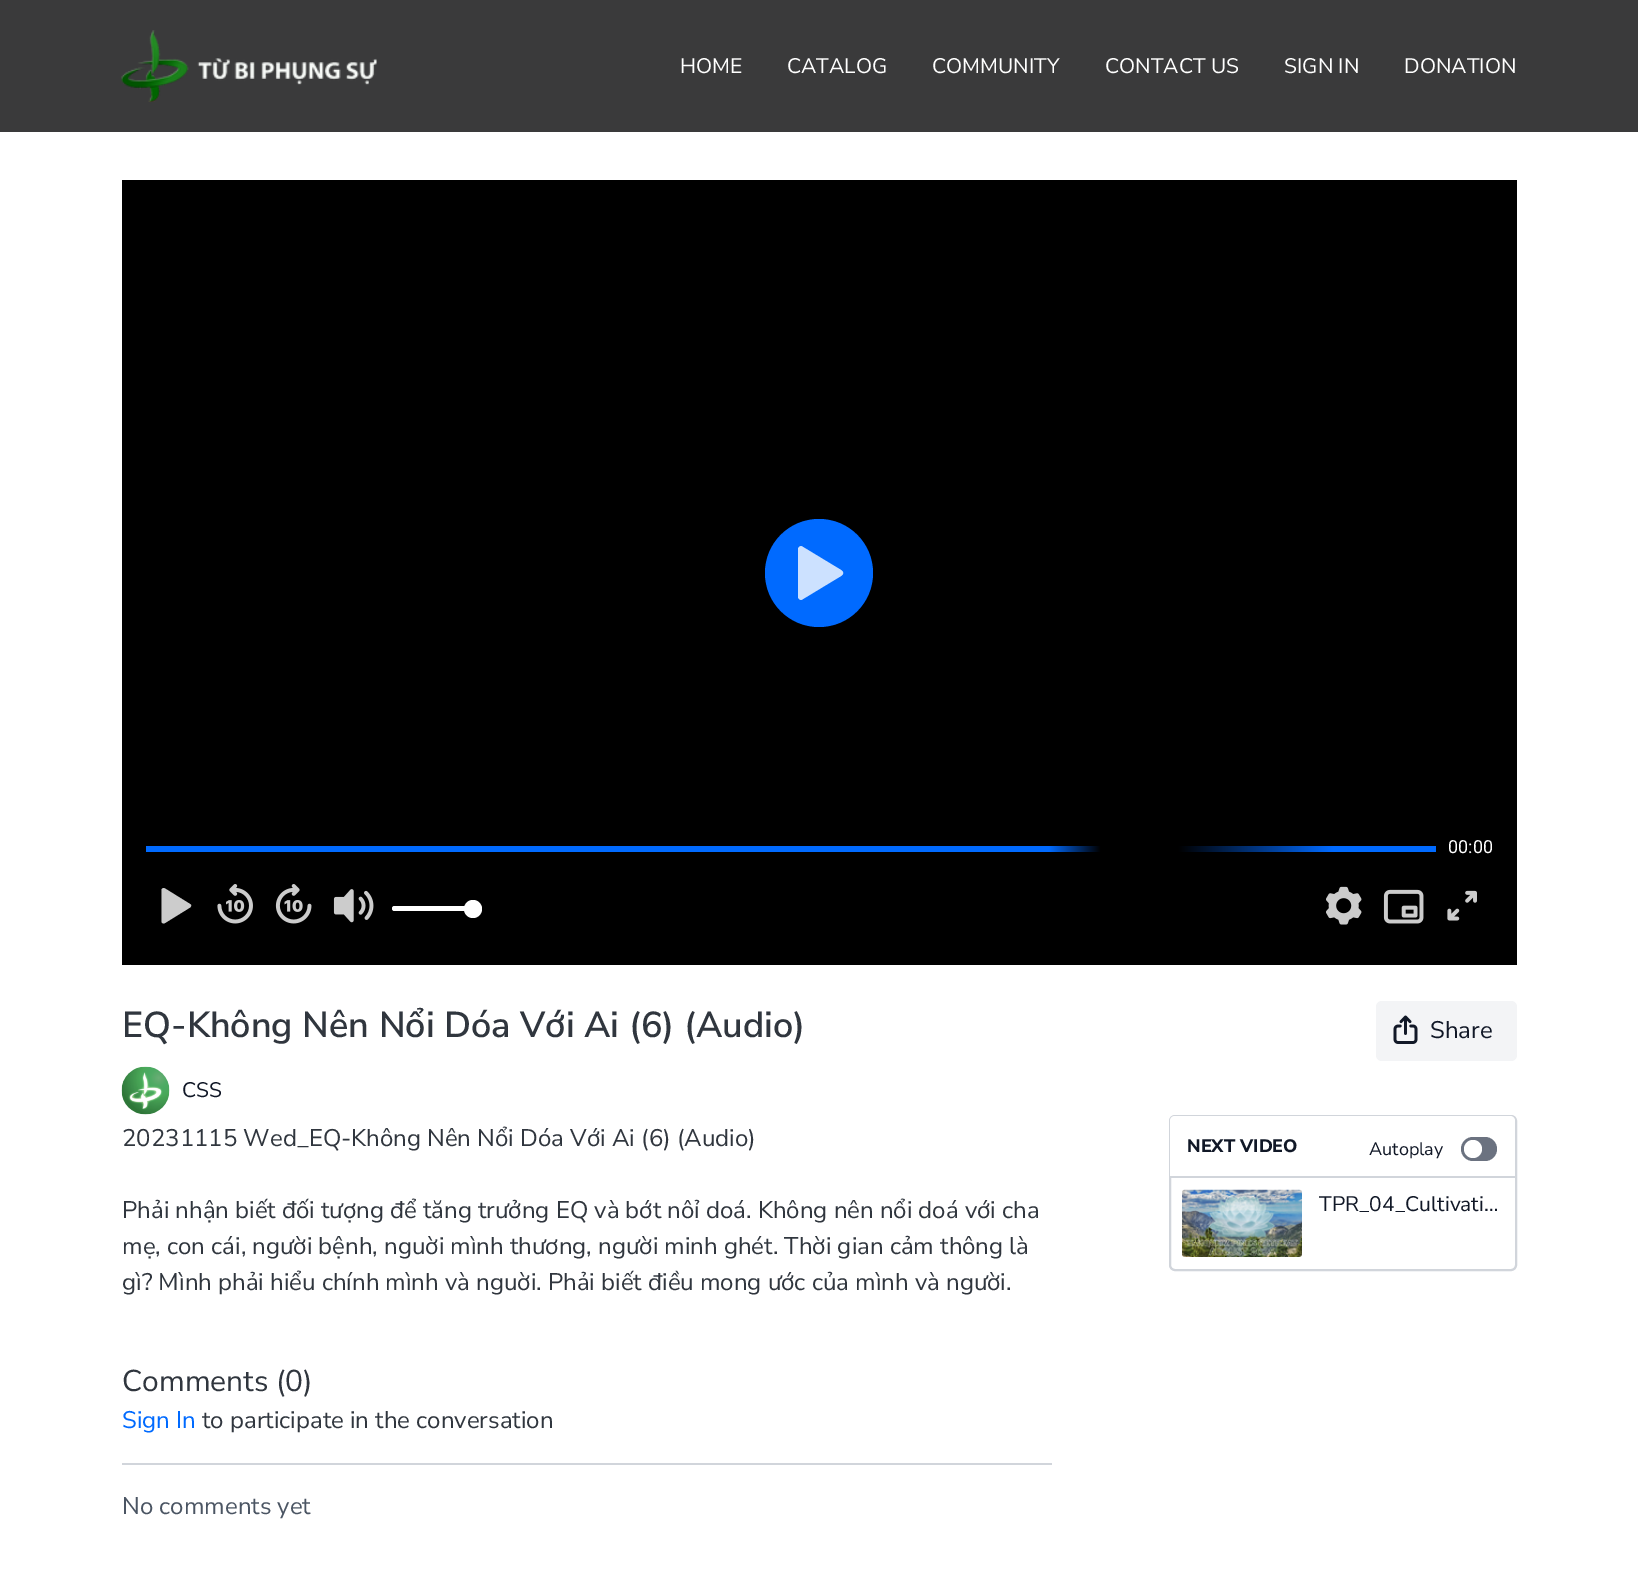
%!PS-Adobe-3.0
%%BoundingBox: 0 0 1638 1590
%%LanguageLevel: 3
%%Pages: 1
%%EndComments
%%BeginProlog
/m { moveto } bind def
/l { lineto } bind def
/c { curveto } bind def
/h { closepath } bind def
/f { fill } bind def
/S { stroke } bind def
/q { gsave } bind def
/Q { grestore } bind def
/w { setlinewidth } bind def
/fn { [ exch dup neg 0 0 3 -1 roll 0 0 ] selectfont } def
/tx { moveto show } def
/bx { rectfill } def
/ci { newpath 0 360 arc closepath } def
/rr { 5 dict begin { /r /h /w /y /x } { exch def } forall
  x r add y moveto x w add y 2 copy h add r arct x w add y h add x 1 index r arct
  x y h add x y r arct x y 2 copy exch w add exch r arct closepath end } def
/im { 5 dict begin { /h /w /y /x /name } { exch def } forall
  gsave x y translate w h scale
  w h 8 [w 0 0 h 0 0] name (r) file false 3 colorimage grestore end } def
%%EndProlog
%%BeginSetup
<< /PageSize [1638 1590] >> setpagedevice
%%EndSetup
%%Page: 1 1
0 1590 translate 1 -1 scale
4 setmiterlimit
1 setgray
0 0 1638 1590 bx
0.227 0.227 0.231 setrgbcolor
0 0 1638 132 bx
(image0.raw) 121 30 256 72 im
/NunitoSans-Regular 21 fn
1 setgray
(HOME) 680 73 tx
(CATALOG) 787 73 tx
(COMMUNITY) 932 73 tx
(CONTACT US) 1105 73 tx
(SIGN IN) 1284 73 tx
(DONATION) 1404 73 tx
0 setgray
122 180 1395 785 bx
0 0.416 1 setrgbcolor
819 573 54 ci f
0.8 0.882 1 setrgbcolor
803 547 m 801 545 798 547 798 549 c 798 597 l 798 599 801 601 803 599 c 841 576 l 844 574 844 572 841 570 c h f
q 146 846 1290 6 3 rr clip newpath
<< /ShadingType 2 /ColorSpace /DeviceRGB /Coords [146 852 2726 852] /Extend [true true] /Function << /FunctionType 3 /Domain [0 1] /Functions [<< /FunctionType 2 /Domain [0 1] /C0 [0 0.416 1] /C1 [0 0.416 1] /N 1 >> << /FunctionType 2 /Domain [0 1] /C0 [0 0.416 1] /C1 [0 0 0] /N 1 >> << /FunctionType 2 /Domain [0 1] /C0 [0 0 0] /C1 [0 0 0] /N 1 >> << /FunctionType 2 /Domain [0 1] /C0 [0 0 0] /C1 [0 0.416 1] /N 1 >> << /FunctionType 2 /Domain [0 1] /C0 [0 0.416 1] /C1 [0 0.416 1] /N 1 >>] /Bounds [0.35 0.37 0.4 0.46] /Encode [0 1 0 1 0 1 0 1 0 1] >> >> shfill Q
/Roboto-Regular 18 fn
1 setgray
(00:00) 1448 853 tx
0.8 setgray
165 888.5 m 163.5 887.5 161.5 888.5 161.5 890 c 161.5 921.5 l 161.5 923 163.5 924 165 923 c 190 907.5 l 191.5 906.5 191.5 904.5 190 904 c h f
(image1.raw) 217 884 36 40 im
(image2.raw) 275 884 37 40 im
(image3.raw) 333 889 41 34 im
1 setgray
392 906 90 5 2.5 rr f
473 909 9 ci f
(image4.raw) 1326 886 36 39 im
(image5.raw) 1383 889 41 35 im
(image6.raw) 1447 890 30 31 im
/NunitoSans-SemiBold 36 fn
0.188 0.212 0.243 setrgbcolor
(EQ-Không Nên Nổi Dóa Với Ai \(6\) \(Audio\)) 122 1037 tx
0.953 0.957 0.965 setrgbcolor
1376 1001 141 60 6 rr f
(image7.raw) 1393 1015 25 29 im
/NunitoSans-Regular 24 fn
0.067 0.094 0.153 setrgbcolor
(Share) 1430 1038 tx
(image8.raw) 121 1066 49 49 im
/NunitoSans-Regular 21 fn
(CSS) 182 1097 tx
/NunitoSans-Regular 24 fn
0.188 0.212 0.243 setrgbcolor
(20231115 Wed_EQ-Không Nên Nổi Dóa Với Ai \(6\) \(Audio\)) 122 1146 tx
(Phải nhận biết đối tượng để tăng trưởng EQ và bớt nôỉ doá. Không nên nổi doá với cha) 122 1218 tx
(mẹ, con cái, người bệnh, nguời mình thương, người minh ghét. Thời gian cảm thông là) 122 1254 tx
(gì? Mình phải hiểu chính mình và nguời. Phải biết điều mong ước của mình và người.) 122 1290 tx
/NunitoSans-Regular 30 fn
(Comments \(0\)) 122 1391 tx
/NunitoSans-Regular 24 fn
0 0.416 1 setrgbcolor
(Sign In) 122 1428 tx
0.188 0.212 0.243 setrgbcolor
(to participate in the conversation) 202 1428 tx
0.82 0.835 0.859 setrgbcolor
122 1463 930 2 bx
0.294 0.333 0.388 setrgbcolor
(No comments yet) 122 1514 tx
0.82 0.835 0.859 setrgbcolor
2 w
1170 1116 346 154 5 rr S
1 setgray
1175 1116 m 1510 1116 l 1513 1116 1515 1118 1515 1121 c 1515 1176 l 1170 1176 l 1170 1121 l 1170 1118 1172 1116 1175 1116 c h f
0.82 0.835 0.859 setrgbcolor
1170 1176 345 2 bx
/NunitoSans-ExtraBold 18 fn
0.067 0.094 0.153 setrgbcolor
(NEXT VIDEO) 1187 1152 tx
/NunitoSans-Regular 18 fn
(Autoplay) 1369 1155 tx
0.42 0.447 0.502 setrgbcolor
1461 1137 36 24 12 rr f
1 setgray
1473 1149 9 ci f
(image9.raw) 1182 1189 120 68 im
/NunitoSans-Regular 21 fn
0.067 0.094 0.153 setrgbcolor
(TPR_04_Cultivati…) 1319 1211 tx
showpage
%%EOF
